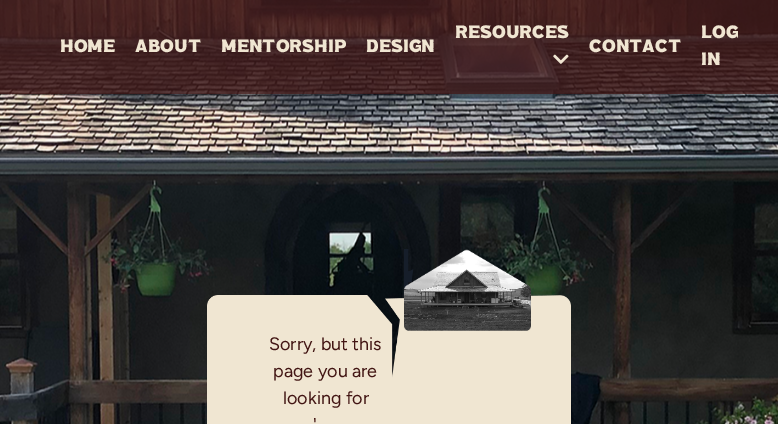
%!PS-Adobe-3.0
%%BoundingBox: 0 0 778 424
%%LanguageLevel: 3
%%Pages: 1
%%EndComments
%%BeginProlog
/fn { [ exch dup neg 0 0 3 -1 roll 0 0 ] selectfont } def
/tx { moveto show } def
/bx { rectfill } def
/al { dup .setfillconstantalpha .setstrokeconstantalpha } def
/im { 5 dict begin { /h /w /y /x /name } { exch def } forall
  gsave x y translate w h scale
  w h 8 [w 0 0 h 0 0] name (r) file false 3 colorimage grestore end } def
%%EndProlog
%%BeginSetup
<< /PageSize [778 424] /PageUsesTransparency true >> setpagedevice
%%EndSetup
%%Page: 1 1
0 .pushpdf14devicefilter
0 424 translate 1 -1 scale
4 setmiterlimit
1 setgray
0 0 778 424 bx
(image1.raw) 0 0 778 424 im
0.7 al
0.259 0.082 0.075 setrgbcolor
0 0 778 94 bx
/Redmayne-Regular 18 fn
1 al
0.941 0.902 0.824 setrgbcolor
(HOME) 60 52 tx
(ABOUT) 135 52 tx
(MENTORSHIP) 221 52 tx
(DESIGN) 366 52 tx
(RESOURCES) 455 38 tx
(image0.raw) 553 54 16 10 im
(CONTACT) 589 52 tx
(LOG) 701 38 tx
(IN) 701 65 tx
(image2.raw) 207 295 364 129 im
(image3.raw) 404 249 127 82 im
/Figtree-Regular 18 fn
0.259 0.082 0.075 setrgbcolor
(Sorry, but this) 269 350 tx
(page you are) 273 377 tx
(looking for) 283 404 tx
(') 313 431 tx
.poppdf14devicefilter showpage
%%EOF
